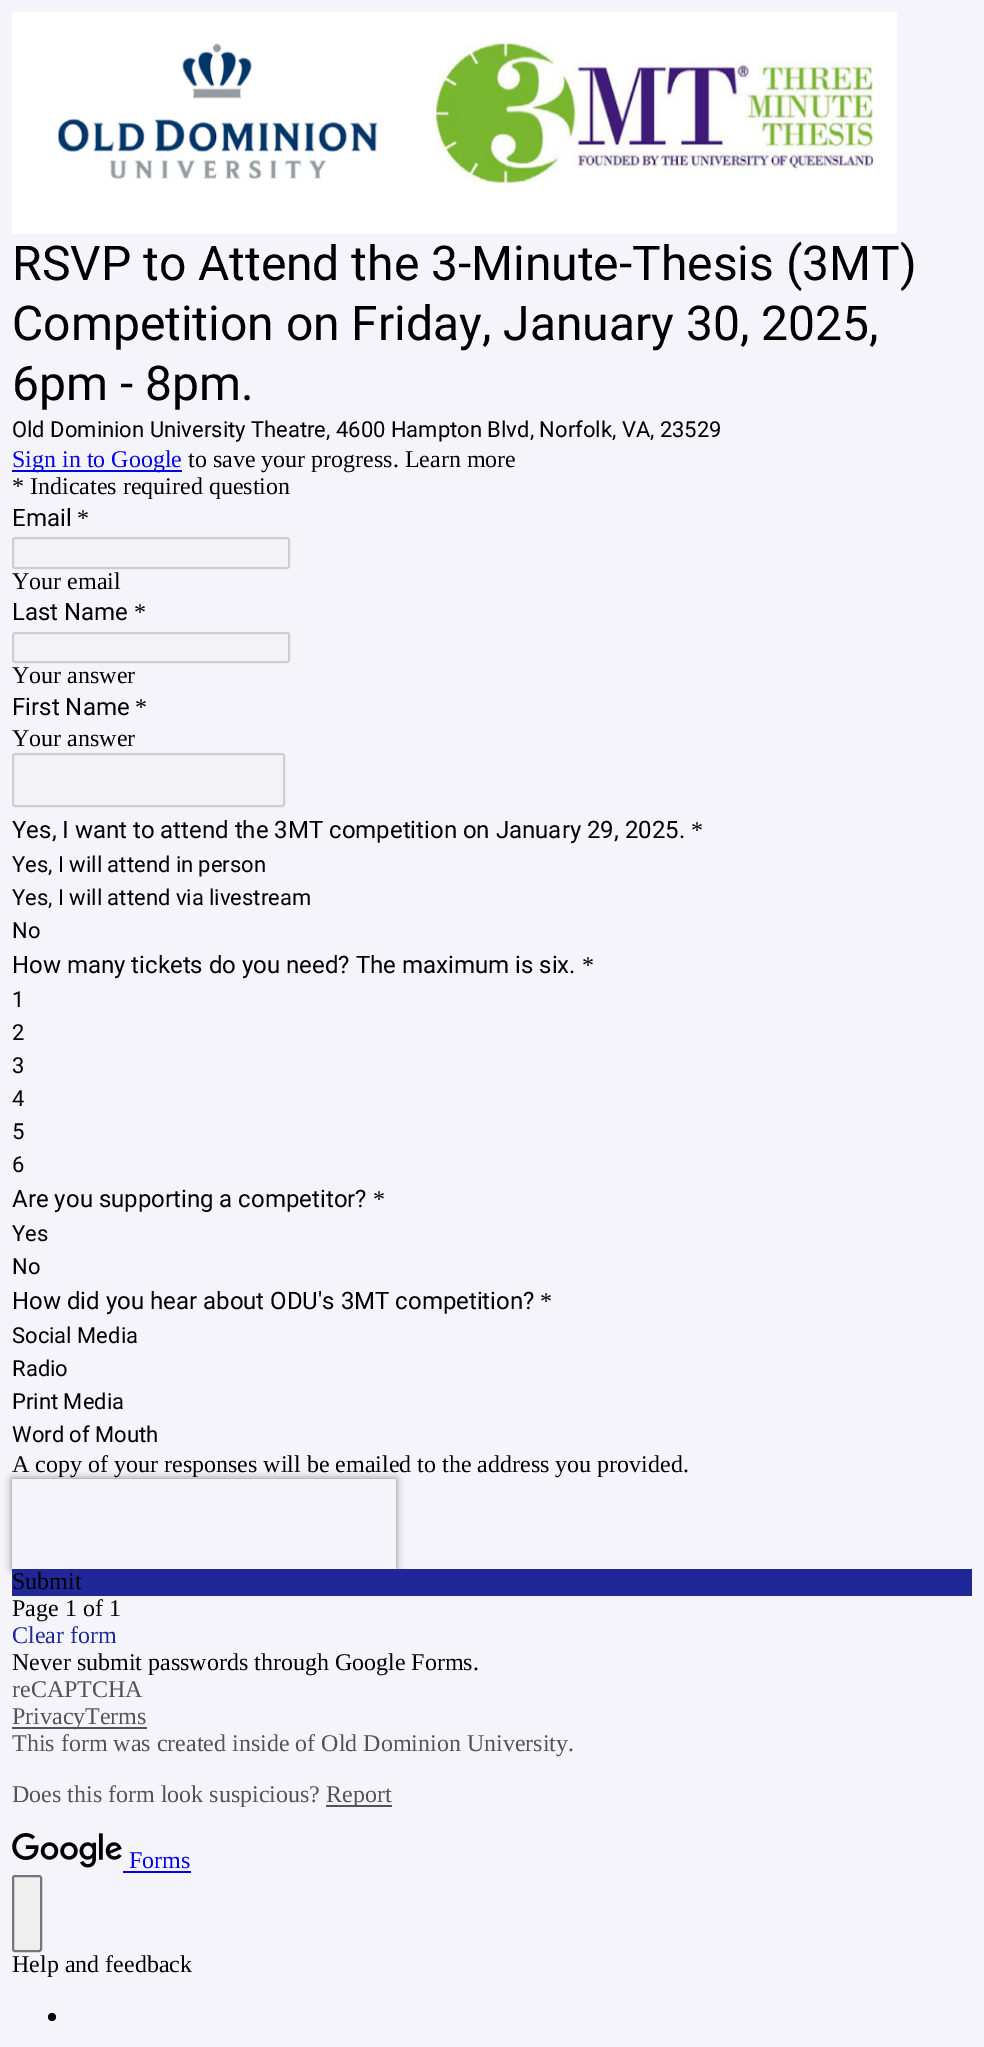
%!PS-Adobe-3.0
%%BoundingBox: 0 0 984 2047
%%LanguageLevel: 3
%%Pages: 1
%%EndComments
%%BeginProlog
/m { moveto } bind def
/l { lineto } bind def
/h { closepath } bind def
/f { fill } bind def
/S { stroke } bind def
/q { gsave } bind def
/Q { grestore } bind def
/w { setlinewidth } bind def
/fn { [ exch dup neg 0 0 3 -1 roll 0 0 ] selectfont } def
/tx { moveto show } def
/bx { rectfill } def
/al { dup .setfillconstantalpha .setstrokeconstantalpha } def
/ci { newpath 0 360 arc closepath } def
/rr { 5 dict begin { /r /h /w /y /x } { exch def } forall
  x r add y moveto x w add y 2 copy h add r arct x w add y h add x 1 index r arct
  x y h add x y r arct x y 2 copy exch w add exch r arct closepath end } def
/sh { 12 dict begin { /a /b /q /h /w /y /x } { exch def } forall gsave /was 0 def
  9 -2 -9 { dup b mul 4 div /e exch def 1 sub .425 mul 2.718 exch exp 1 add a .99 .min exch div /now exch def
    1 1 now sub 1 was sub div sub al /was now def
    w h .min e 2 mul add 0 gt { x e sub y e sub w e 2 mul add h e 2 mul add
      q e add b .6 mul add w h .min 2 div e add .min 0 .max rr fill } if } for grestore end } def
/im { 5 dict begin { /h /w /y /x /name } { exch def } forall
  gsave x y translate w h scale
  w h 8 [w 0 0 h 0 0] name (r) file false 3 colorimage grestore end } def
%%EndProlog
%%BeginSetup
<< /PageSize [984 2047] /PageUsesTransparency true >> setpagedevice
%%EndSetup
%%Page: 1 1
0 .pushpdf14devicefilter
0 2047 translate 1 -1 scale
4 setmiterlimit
0.957 0.957 0.98 setrgbcolor
0 0 984 2047 bx
(image0.raw) 12 12 885 222 im
/Roboto-Regular 48 fn
0 setgray
(RSVP to Attend the 3-Minute-Thesis \(3MT\)) 12 280 tx
(Competition on Friday, January 30, 2025,) 12 340 tx
(6pm - 8pm.) 12 400 tx
/Roboto-Regular 22 fn
(Old Dominion University Theatre, 4600 Hampton Blvd, Norfolk, VA, 23529) 12 437 tx
0 0 0.933 setrgbcolor
12 470 170 2 bx
/LiberationSerif-Regular 24 fn
(Sign in to Google) 12 467 tx
0 setgray
(to save your progress. Learn more) 188 467 tx
(* Indicates required question) 12 494 tx
/Roboto-Regular 24 fn
(Email) 12 526 tx
/LiberationSerif-Regular 24 fn
(*) 77 526 tx
0.953 0.953 0.969 setrgbcolor
13 538 276 30 2 rr q f Q
0.808 0.808 0.816 setrgbcolor
2 w
S
0 setgray
(Your email) 12 589 tx
/Roboto-Regular 24 fn
(Last Name) 12 620 tx
/LiberationSerif-Regular 24 fn
(*) 134 620 tx
0.953 0.953 0.969 setrgbcolor
13 633 276 29 2 rr q f Q
0.808 0.808 0.816 setrgbcolor
S
0 setgray
(Your answer) 12 683 tx
/Roboto-Regular 24 fn
(First Name) 12 715 tx
/LiberationSerif-Regular 24 fn
(*) 135 715 tx
(Your answer) 12 746 tx
0.953 0.953 0.969 setrgbcolor
13 754 271 52 2 rr q f Q
0.808 0.808 0.816 setrgbcolor
S
/Roboto-Regular 24 fn
0 setgray
(Yes, I want to attend the 3MT competition on January 29, 2025.) 12 838 tx
/LiberationSerif-Regular 24 fn
(*) 691 838 tx
/Roboto-Regular 22 fn
(Yes, I will attend in person) 12 872 tx
(Yes, I will attend via livestream) 12 905 tx
(No) 12 938 tx
/Roboto-Regular 24 fn
(How many tickets do you need? The maximum is six.) 12 973 tx
/LiberationSerif-Regular 24 fn
(*) 582 973 tx
/Roboto-Regular 22 fn
(1) 12 1007 tx
(2) 12 1040 tx
(3) 12 1073 tx
(4) 12 1106 tx
(5) 12 1139 tx
(6) 12 1172 tx
/Roboto-Regular 24 fn
(Are you supporting a competitor?) 12 1207 tx
/LiberationSerif-Regular 24 fn
(*) 373 1207 tx
/Roboto-Regular 22 fn
(Yes) 12 1241 tx
(No) 12 1274 tx
/Roboto-Regular 24 fn
(How did you hear about ODU's 3MT competition?) 12 1309 tx
/LiberationSerif-Regular 24 fn
(*) 540 1309 tx
/Roboto-Regular 22 fn
(Social Media) 12 1343 tx
(Radio) 12 1376 tx
(Print Media) 12 1409 tx
(Word of Mouth) 12 1442 tx
q
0 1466 m 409 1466 l 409 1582 l 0 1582 l h 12 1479 m 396 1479 l 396 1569 l 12 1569 l h eoclip newpath
0.502 setgray
12 1479 384 90 0 4 1 sh
Q
/LiberationSerif-Regular 24 fn
(A copy of your responses will be emailed to the address you provided.) 12 1472 tx
0.125 0.157 0.596 setrgbcolor
12 1569 960 27 bx
0 setgray
(Submit) 12 1589 tx
(Page 1 of 1) 12 1616 tx
0.125 0.157 0.596 setrgbcolor
(Clear form) 12 1643 tx
0 setgray
(Never submit passwords through Google Forms.) 12 1670 tx
0.325 0.325 0.333 setrgbcolor
(reCAPTCHA) 12 1697 tx
12 1727 135 2 bx
(Privacy) 12 1724 tx
(Terms) 85 1724 tx
(This form was created inside of Old Dominion University.) 12 1751 tx
(Does this form look suspicious?) 12 1802 tx
326 1805 66 2 bx
(Report) 326 1802 tx
(image1.raw) 12 1833 110 35 im
0 0 0.933 setrgbcolor
(Forms) 129 1868 tx
123 1871 68 2 bx
0.937 setgray
13 1876 28 75 2 rr q f Q
0.463 setgray
S
0 setgray
(Help and feedback) 12 1972 tx
52 2017 4 ci f
.poppdf14devicefilter showpage
%%EOF
